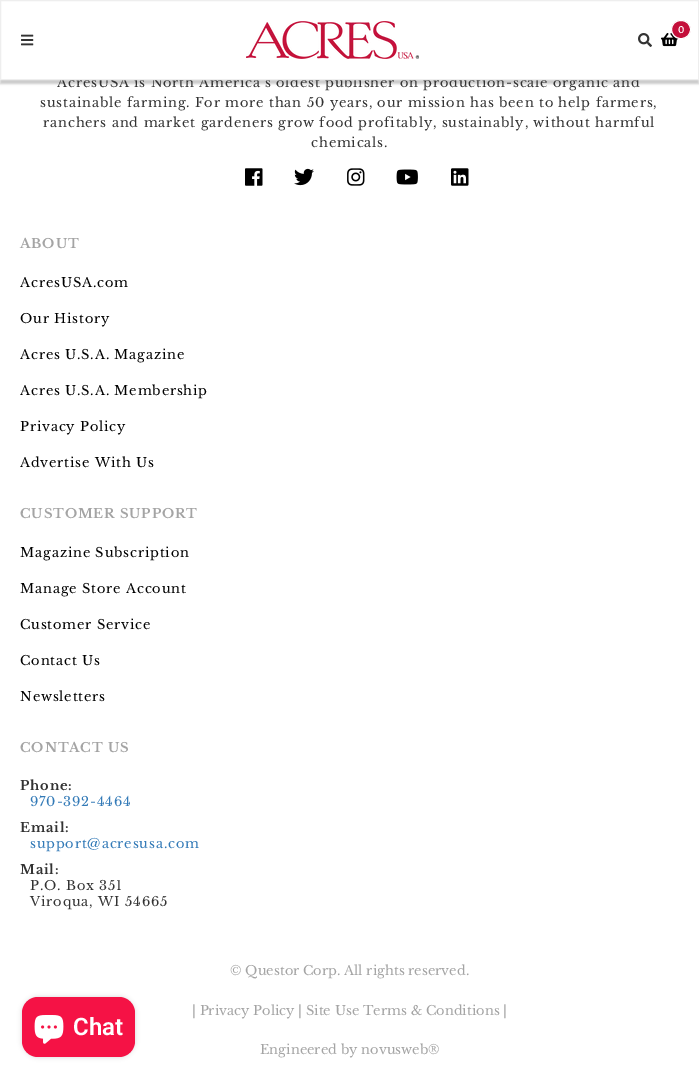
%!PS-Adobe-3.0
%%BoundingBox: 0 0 699 1078
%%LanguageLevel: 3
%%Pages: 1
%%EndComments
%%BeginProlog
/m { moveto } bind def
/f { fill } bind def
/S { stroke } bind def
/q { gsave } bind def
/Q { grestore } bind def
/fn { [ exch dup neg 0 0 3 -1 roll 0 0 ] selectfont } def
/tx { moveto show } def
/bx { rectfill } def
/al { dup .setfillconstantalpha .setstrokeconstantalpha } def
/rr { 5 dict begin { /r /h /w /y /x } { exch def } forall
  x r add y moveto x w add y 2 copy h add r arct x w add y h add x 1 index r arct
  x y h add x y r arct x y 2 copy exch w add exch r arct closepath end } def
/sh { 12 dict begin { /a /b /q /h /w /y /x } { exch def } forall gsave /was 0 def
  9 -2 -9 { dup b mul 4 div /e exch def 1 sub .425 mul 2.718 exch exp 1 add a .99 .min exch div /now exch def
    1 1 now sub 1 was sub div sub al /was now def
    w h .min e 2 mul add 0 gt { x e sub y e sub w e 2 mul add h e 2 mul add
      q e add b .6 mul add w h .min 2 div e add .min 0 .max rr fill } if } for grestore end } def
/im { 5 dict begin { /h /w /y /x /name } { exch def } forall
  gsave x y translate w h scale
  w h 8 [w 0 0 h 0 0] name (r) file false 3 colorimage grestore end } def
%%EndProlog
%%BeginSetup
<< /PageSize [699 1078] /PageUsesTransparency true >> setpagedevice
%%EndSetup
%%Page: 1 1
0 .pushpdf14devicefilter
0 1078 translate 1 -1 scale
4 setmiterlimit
1 setgray
0 0 699 1078 bx
0 setgray
0 4 699 80 0 1 0.2 sh
/LibreBaskerville-Regular 13 fn
0.2 setgray
57 87 m 0.8 0 (AcresUSA is North America's oldest publisher on production-scale organic and) ashow
1 setgray
1 2 697 77 bx
0.933 setgray
0.5 0.5 698 79 rectstroke
(image0.raw) 246 21 173 38 im
(image1.raw) 661 33 17 14 im
0.769 0.059 0.227 setrgbcolor
671.5 20.5 19 18 9 rr q f Q
1 setgray
S
/LibreFranklin-Bold 9 fn
(0) 678 33 tx
(image2.raw) 638 33 14 14 im
(image3.raw) 21 34 13 12 im
/LibreBaskerville-Regular 13 fn
0.2 setgray
40 107 m 0.8 0 (sustainable farming. For more than 50 years, our mission has been to help farmers,) ashow
43 127 m 0.8 0 (ranchers and market gardeners grow food profitably, sustainably, without harmful) ashow
311 147 m 0.8 0 (chemicals.) ashow
(image4.raw) 245 168 18 18 im
(image5.raw) 294 168 20 18 im
(image6.raw) 347 168 18 18 im
(image7.raw) 396 169 22 16 im
(image8.raw) 451 168 18 18 im
/LibreBaskerville-Bold 13 fn
0.643 setgray
20 248 m 0.8 0 (ABOUT) ashow
/LibreBaskerville-Regular 13 fn
0 setgray
20 287 m 0.8 0 (AcresUSA.com) ashow
20 323 m 0.8 0 (Our History) ashow
20 359 m 0.8 0 (Acres U.S.A. Magazine) ashow
20 395 m 0.8 0 (Acres U.S.A. Membership) ashow
20 431 m 0.8 0 (Privacy Policy) ashow
20 467 m 0.8 0 (Advertise With Us) ashow
/LibreBaskerville-Bold 13 fn
0.643 setgray
20 518 m 0.8 0 (CUSTOMER SUPPORT) ashow
/LibreBaskerville-Regular 13 fn
0 setgray
20 557 m 0.8 0 (Magazine Subscription) ashow
20 593 m 0.8 0 (Manage Store Account) ashow
20 629 m 0.8 0 (Customer Service) ashow
20 665 m 0.8 0 (Contact Us) ashow
20 701 m 0.8 0 (Newsletters) ashow
/LibreBaskerville-Bold 13 fn
0.643 setgray
20 752 m 0.8 0 (CONTACT US) ashow
0.2 setgray
20 790 m 0.8 0 (Phone:) ashow
/LibreBaskerville-Regular 13 fn
0.2 0.478 0.718 setrgbcolor
30 806 m 0.8 0 (970-392-4464) ashow
/LibreBaskerville-Bold 13 fn
0.2 setgray
20 832 m 0.8 0 (Email:) ashow
/LibreBaskerville-Regular 13 fn
0.2 0.478 0.718 setrgbcolor
30 848 m 0.8 0 (support@acresusa.com) ashow
/LibreBaskerville-Bold 13 fn
0.2 setgray
20 874 m 0.8 0 (Mail:) ashow
/LibreBaskerville-Regular 13 fn
30 890 m 0.8 0 (P.O. Box 351) ashow
30 906 m 0.8 0 (Viroqua, WI 54665) ashow
0.643 setgray
(© Questor Corp. All rights reserved.) 230 975 tx
(| Privacy Policy | Site Use Terms & Conditions |) 192 1015 tx
(Engineered by novusweb®) 260 1054 tx
0 setgray
22 997 113 60 16 2.5 0.15 sh
0.961 0.071 0.271 setrgbcolor
22 997 113 60 16 rr f
(image9.raw) 34 1015 30 29 im
/Roboto-SemiBold 24 fn
1 setgray
(Chat) 73 1035 tx
.poppdf14devicefilter showpage
%%EOF
